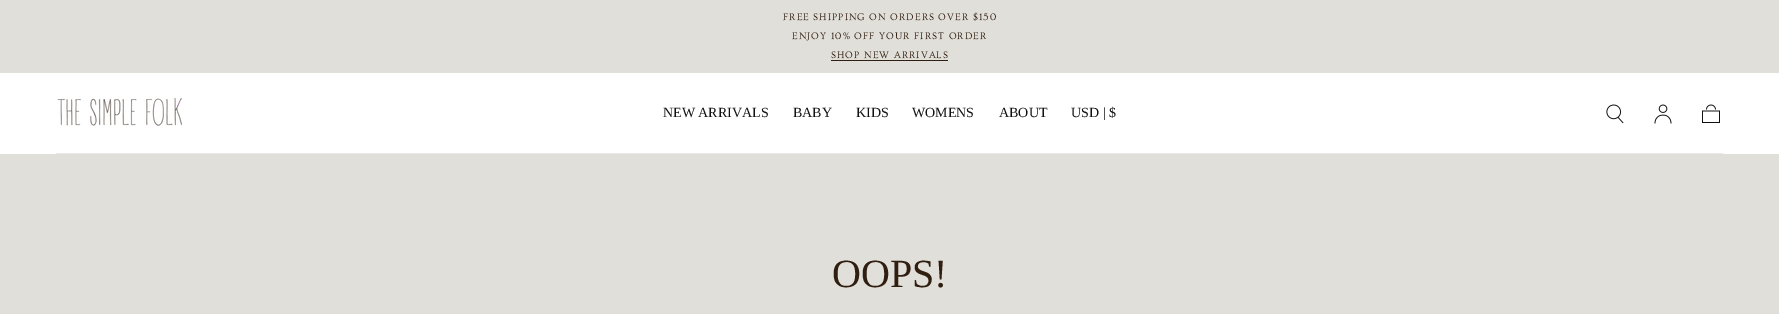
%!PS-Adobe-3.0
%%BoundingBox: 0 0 1779 314
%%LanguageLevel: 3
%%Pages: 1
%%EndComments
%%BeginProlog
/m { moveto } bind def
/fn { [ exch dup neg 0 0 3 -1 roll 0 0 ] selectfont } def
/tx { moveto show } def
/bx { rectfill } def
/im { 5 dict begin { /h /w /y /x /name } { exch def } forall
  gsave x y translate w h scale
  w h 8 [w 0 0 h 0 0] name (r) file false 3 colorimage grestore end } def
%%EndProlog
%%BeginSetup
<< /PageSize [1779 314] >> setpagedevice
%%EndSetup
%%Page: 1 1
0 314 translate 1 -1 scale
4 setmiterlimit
0.882 0.875 0.851 setrgbcolor
0 0 1779 314 bx
/Ovo-Regular 10 fn
0.188 0.118 0.063 setrgbcolor
783 20 m 1 0 (FREE SHIPPING ON ORDERS OVER $150) ashow
792 39 m 1 0 (ENJOY 10% OFF YOUR FIRST ORDER) ashow
831 58 m 1 0 (SHOP NEW ARRIVALS) ashow
831 60 117 1 bx
1 setgray
0 73 1779 81 bx
(image0.raw) 57 98 126 28 im
/LiberationSerif-Regular 14 fn
0.067 setgray
(NEW ARRIVALS) 663 117 tx
(BABY) 793 117 tx
(KIDS) 856 117 tx
(WOMENS) 912 117 tx
(ABOUT) 999 117 tx
(USD | $) 1071 117 tx
(image1.raw) 1606 104 18 20 im
(image2.raw) 1654 104 18 20 im
(image3.raw) 1702 104 18 19 im
0.918 0.914 0.906 setrgbcolor
56 153 1667 1 bx
/LiberationSerif-Regular 40 fn
0.188 0.118 0.063 setrgbcolor
(OOPS!) 832 287 tx
showpage
%%EOF
